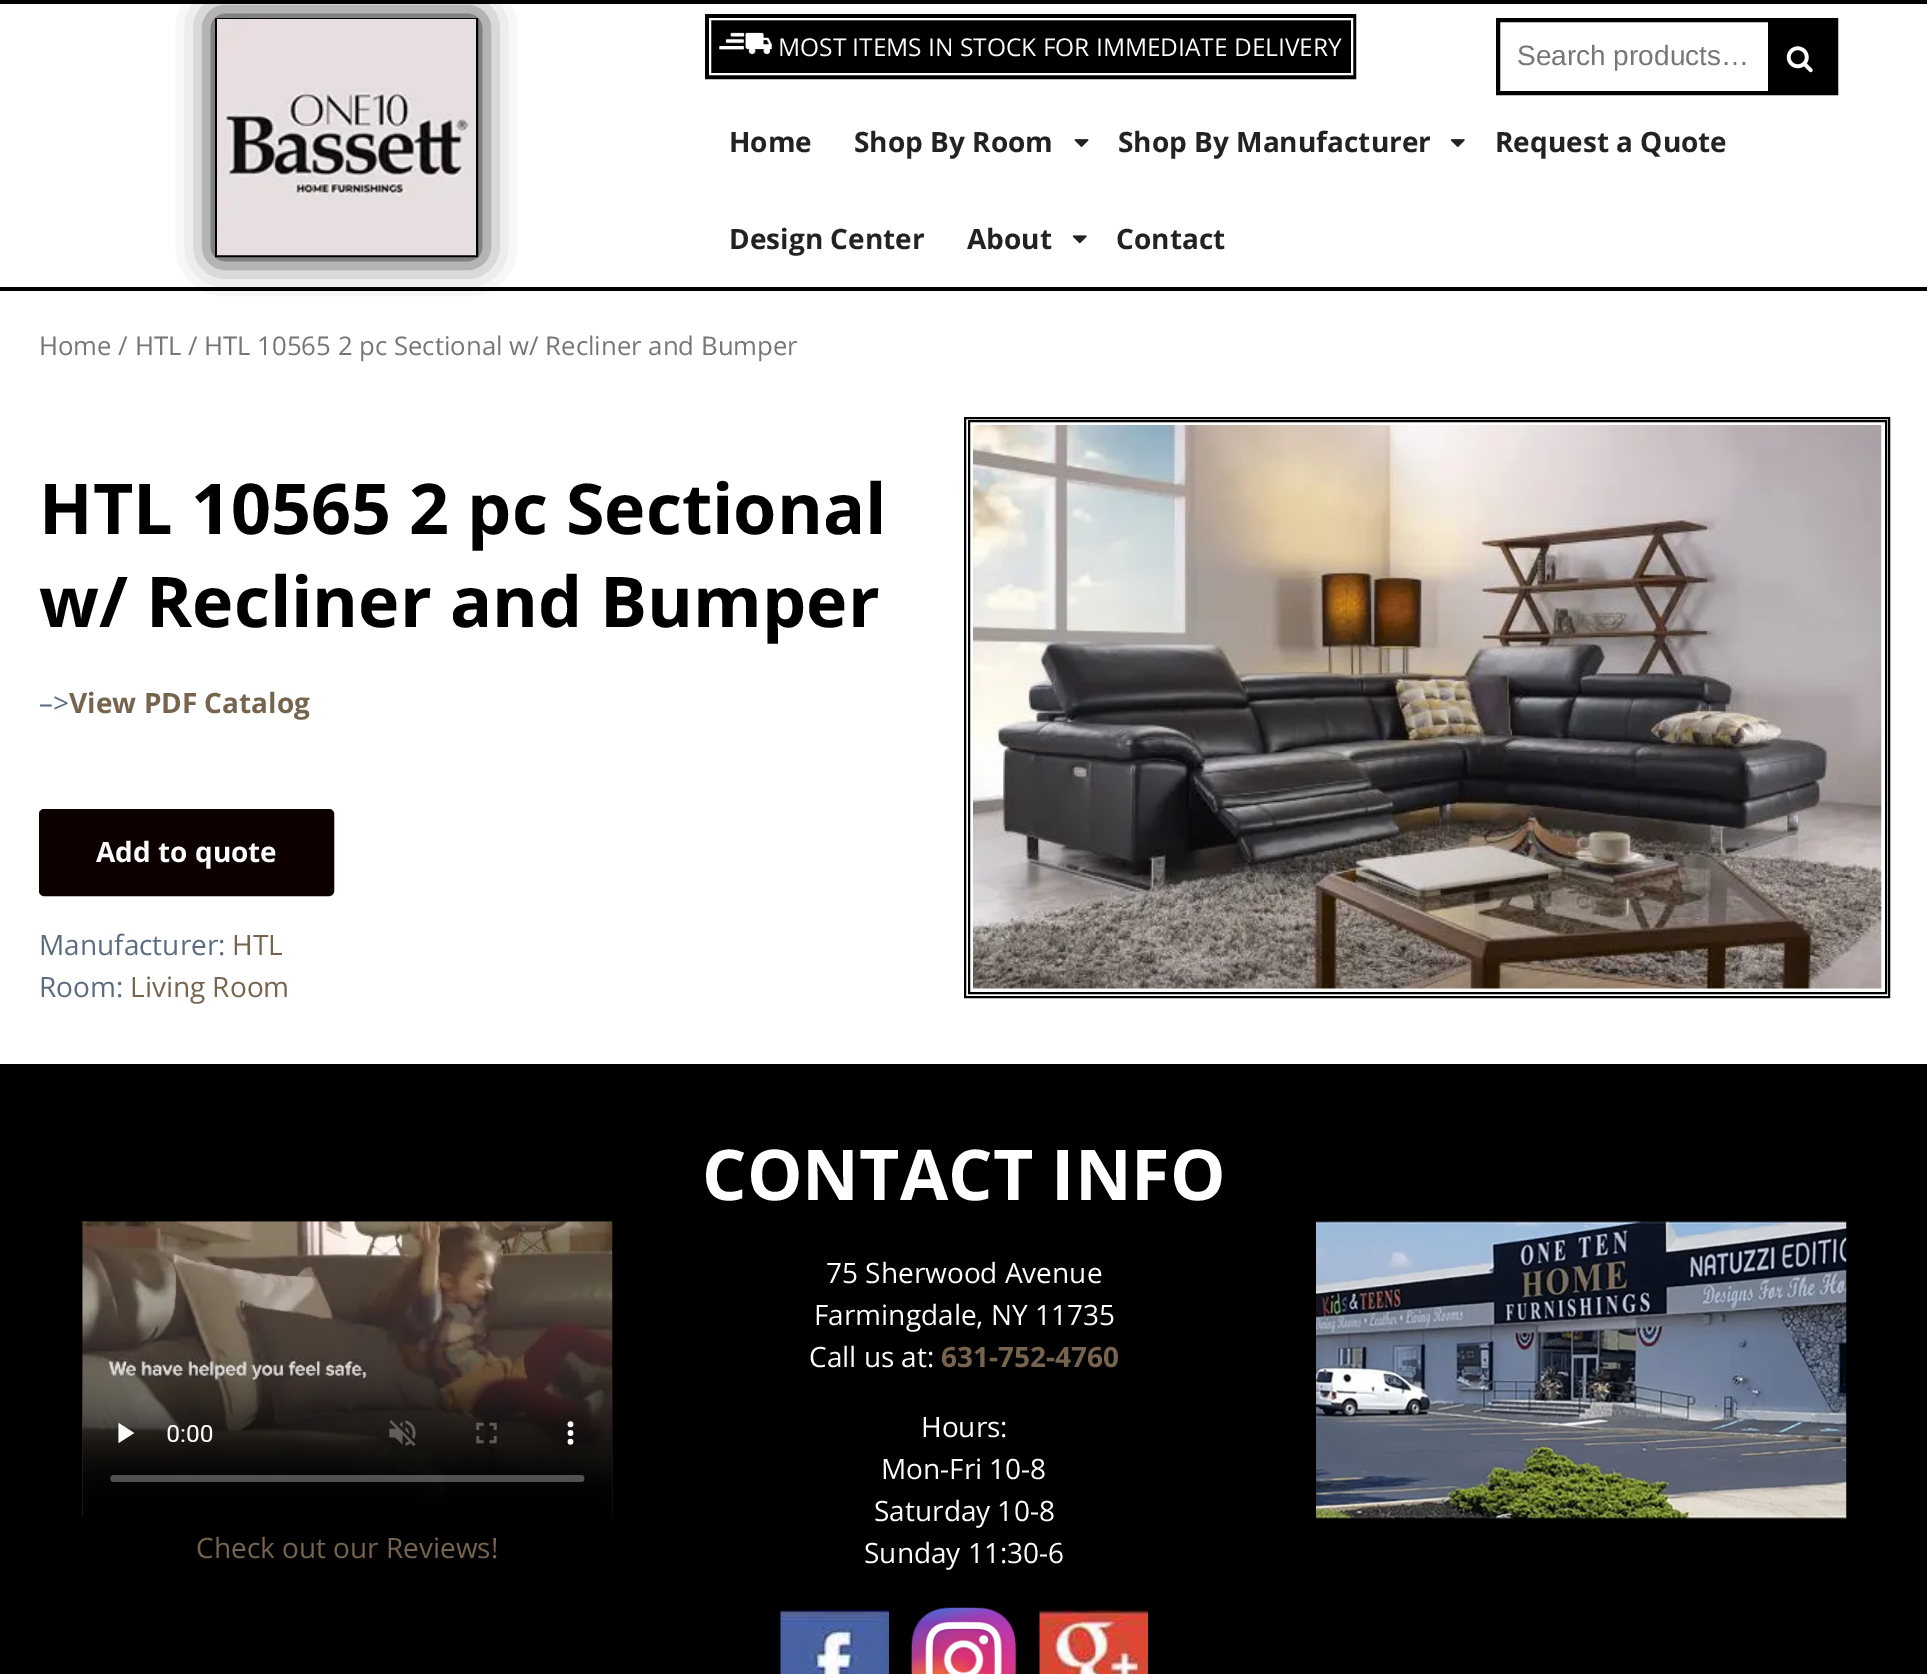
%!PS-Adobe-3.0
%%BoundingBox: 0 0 1927 1674
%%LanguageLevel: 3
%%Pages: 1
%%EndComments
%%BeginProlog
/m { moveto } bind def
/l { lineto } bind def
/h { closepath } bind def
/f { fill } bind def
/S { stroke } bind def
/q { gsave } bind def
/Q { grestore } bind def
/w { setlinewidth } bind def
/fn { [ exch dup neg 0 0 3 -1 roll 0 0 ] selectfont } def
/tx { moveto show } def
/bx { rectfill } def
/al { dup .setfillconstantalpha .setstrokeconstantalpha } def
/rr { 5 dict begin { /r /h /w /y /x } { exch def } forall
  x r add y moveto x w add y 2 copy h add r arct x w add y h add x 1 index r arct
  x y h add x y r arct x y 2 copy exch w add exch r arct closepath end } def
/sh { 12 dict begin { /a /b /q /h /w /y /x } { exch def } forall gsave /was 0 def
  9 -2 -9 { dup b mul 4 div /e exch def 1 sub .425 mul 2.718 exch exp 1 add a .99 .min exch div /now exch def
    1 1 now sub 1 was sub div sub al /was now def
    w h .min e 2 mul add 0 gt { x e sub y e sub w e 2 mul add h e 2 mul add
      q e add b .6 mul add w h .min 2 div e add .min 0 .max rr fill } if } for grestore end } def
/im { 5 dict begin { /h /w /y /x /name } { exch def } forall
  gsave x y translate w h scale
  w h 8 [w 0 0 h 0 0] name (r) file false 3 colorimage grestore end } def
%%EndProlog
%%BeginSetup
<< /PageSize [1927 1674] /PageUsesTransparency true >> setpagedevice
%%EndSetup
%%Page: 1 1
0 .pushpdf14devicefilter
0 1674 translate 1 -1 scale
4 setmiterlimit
1 setgray
0 0 1927 1674 bx
0 setgray
0 0 1927 4 bx
0 287 1927 4 bx
215 18 263 239 0 17.5 1 sh
2 w
216 19 261 237 rectstroke
(image0.raw) 217 19 259 237 im
4 w
707 16 647 61 rectstroke
710 19 m 1352 19 l 1352 74 l 710 74 l h q f Q
1 setgray
2 w
S
(image1.raw) 719 32 53 23 im
/OpenSans-Regular 24.5 fn
(MOST ITEMS IN STOCK FOR IMMEDIATE DELIVERY) 778 56 tx
0 setgray
4 w
1498 20 338 73 rectstroke
/LiberationSans-Regular 28 fn
0.463 setgray
(Search products…) 1517 65 tx
0 setgray
1768 22 66 69 bx
(image2.raw) 1786 46 27 27 im
/OpenSans-Bold 28 fn
0.133 setgray
(Home) 729 152 tx
(Shop By Room) 854 152 tx
(image3.raw) 1074 139 15 8 im
(Shop By Manufacturer) 1118 152 tx
(image4.raw) 1450 139 15 8 im
(Request a Quote) 1495 152 tx
(Design Center) 729 249 tx
(About) 967 249 tx
(image5.raw) 1072 235 15 9 im
(Contact) 1116 249 tx
/OpenSans-Regular 25.75 fn
0.463 setgray
(Home / HTL / HTL 10565 2 pc Sectional w/ Recliner and Bumper) 39 355 tx
/OpenSans-Bold 70 fn
0 setgray
(HTL 10565 2 pc Sectional) 39 534 tx
(w/ Recliner and Bumper) 39 627 tx
/OpenSans-Regular 28 fn
0.361 0.42 0.502 setrgbcolor
(–>) 39 713 tx
/OpenSans-Bold 28 fn
0.463 0.392 0.306 setrgbcolor
(View PDF Catalog) 69 713 tx
0.047 0 0 setrgbcolor
40 810 293 85 4 rr q f Q
2 w
S
1 setgray
(Add to quote) 96 862 tx
/OpenSans-Regular 28 fn
0.361 0.42 0.502 setrgbcolor
(Manufacturer:) 39 955 tx
0.463 0.392 0.306 setrgbcolor
(HTL) 232 955 tx
0.361 0.42 0.502 setrgbcolor
(Room:) 39 997 tx
0.463 0.392 0.306 setrgbcolor
(Living Room) 130 997 tx
0 setgray
965 418 924 579 rectstroke
969 421 917 572 rectstroke
(image6.raw) 973 425 909 564 im
0 1064 1927 610 bx
/OpenSans-Bold 70 fn
1 setgray
(CONTACT INFO) 702 1200 tx
/OpenSans-Regular 28 fn
(75 Sherwood Avenue) 826 1283 tx
(Farmingdale, NY 11735) 814 1325 tx
(Call us at:) 809 1367 tx
/OpenSans-Bold 28 fn
0.463 0.392 0.306 setrgbcolor
(631-752-4760) 941 1367 tx
/OpenSans-Regular 28 fn
1 setgray
(Hours:) 921 1437 tx
(Mon-Fri 10-8) 881 1479 tx
(Saturday 10-8) 874 1521 tx
(Sunday 11:30-6) 864 1563 tx
(image7.raw) 780 1609 109 65 im
(image8.raw) 910 1607 107 67 im
(image9.raw) 1039 1609 109 65 im
(image10.raw) 1316 1221 531 298 im
(image11.raw) 82 1221 531 296 im
0.463 0.392 0.306 setrgbcolor
(Check out our Reviews!) 196 1558 tx
.poppdf14devicefilter showpage
%%EOF
